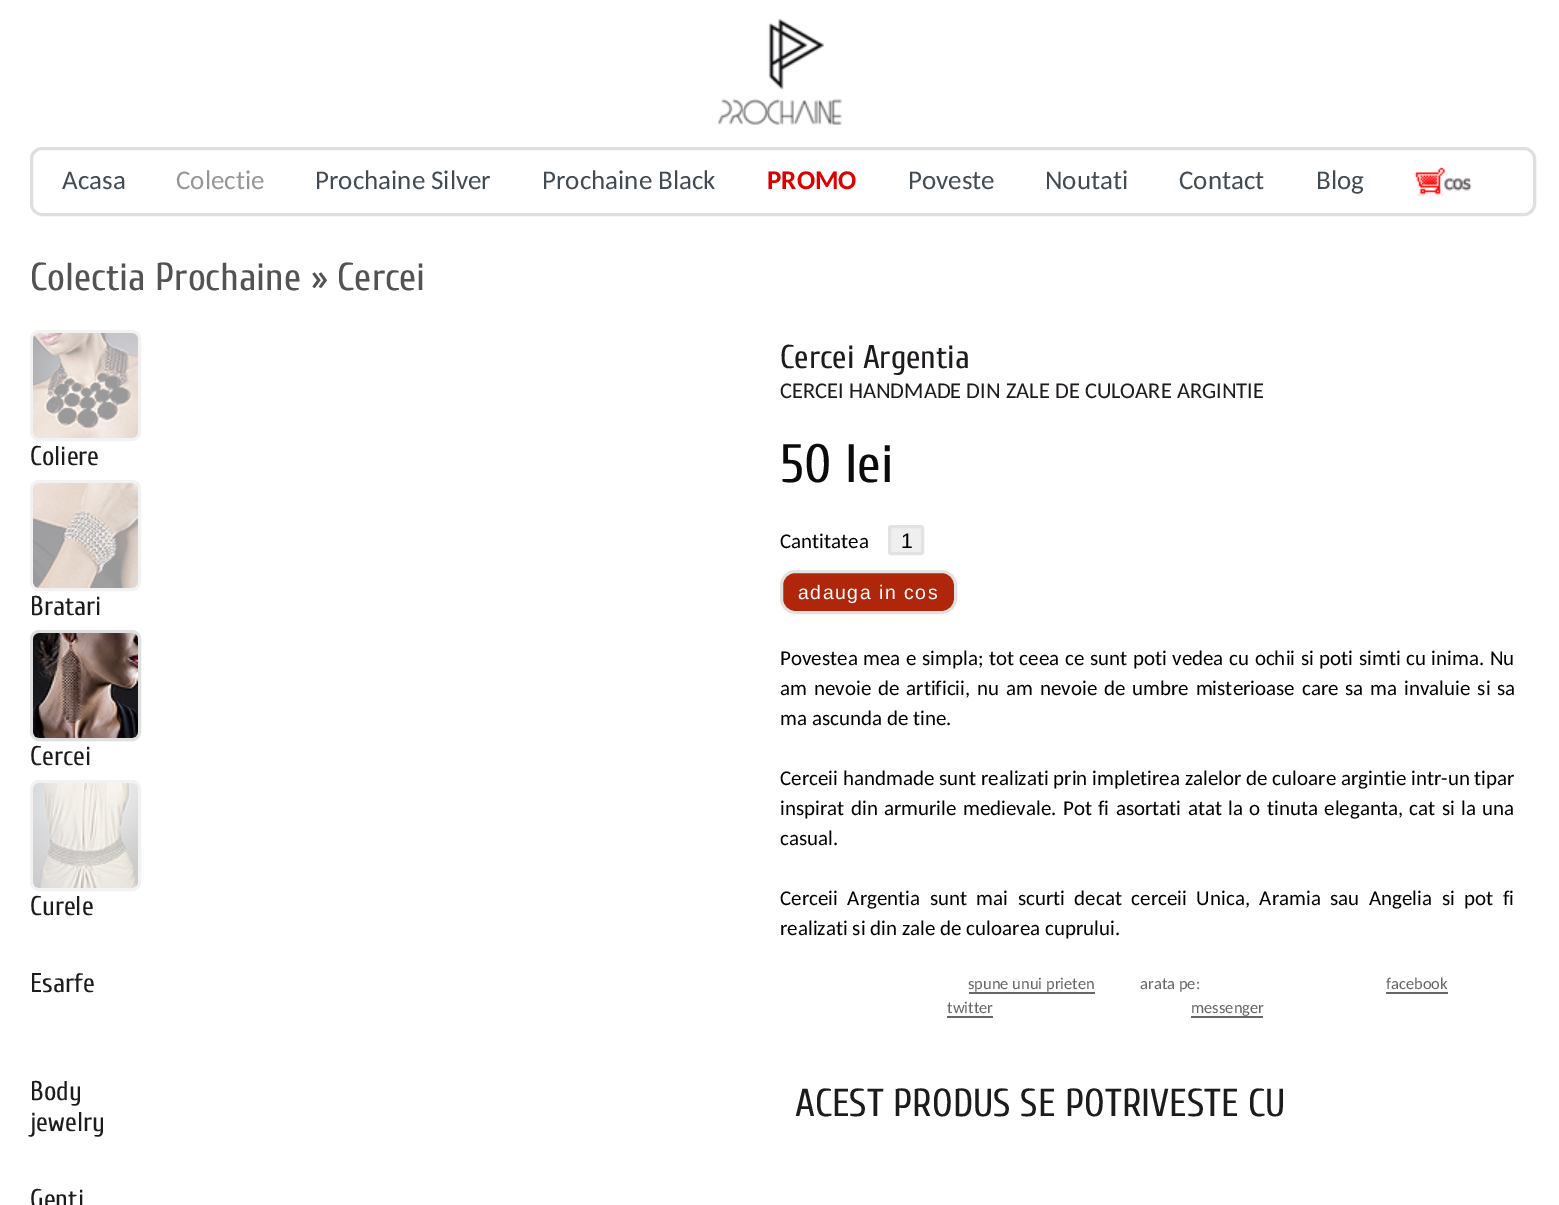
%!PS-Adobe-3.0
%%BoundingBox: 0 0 1559 1205
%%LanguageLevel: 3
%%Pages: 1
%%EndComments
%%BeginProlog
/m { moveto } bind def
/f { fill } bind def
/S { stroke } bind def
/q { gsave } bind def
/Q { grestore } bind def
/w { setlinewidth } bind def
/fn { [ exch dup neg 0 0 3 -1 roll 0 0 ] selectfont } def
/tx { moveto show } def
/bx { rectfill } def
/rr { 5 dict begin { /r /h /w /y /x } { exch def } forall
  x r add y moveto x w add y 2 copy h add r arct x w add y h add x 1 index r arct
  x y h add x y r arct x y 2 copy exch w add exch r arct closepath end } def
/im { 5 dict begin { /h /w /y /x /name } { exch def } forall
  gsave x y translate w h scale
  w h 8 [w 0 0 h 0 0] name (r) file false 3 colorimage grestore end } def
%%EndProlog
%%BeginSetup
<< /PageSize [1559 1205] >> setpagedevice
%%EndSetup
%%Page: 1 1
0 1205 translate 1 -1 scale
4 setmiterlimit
1 setgray
0 0 1559 1205 bx
(image0.raw) 717 18 125 107 im
0.875 setgray
3 w
31.5 148.5 1503 66 10.5 rr S
/Carlito-Regular 27 fn
0.259 0.294 0.325 setrgbcolor
(Acasa) 62 189 tx
0.588 setgray
(Colectie) 176 189 tx
0.259 0.294 0.325 setrgbcolor
(Prochaine Silver) 315 189 tx
(Prochaine Black) 542 189 tx
/Carlito-Bold 27 fn
0.867 0 0 setrgbcolor
(PROMO) 767 189 tx
/Carlito-Regular 27 fn
0.259 0.294 0.325 setrgbcolor
(Poveste) 908 189 tx
(Noutati) 1045 189 tx
(Contact) 1179 189 tx
(Blog) 1316 189 tx
(image1.raw) 1414 167 58 30 im
/Cuprum-Regular 39 fn
0.322 0.325 0.329 setrgbcolor
(Colectia Prochaine » Cercei) 30 290 tx
0.949 setgray
31.5 331.5 108 108 7.5 rr S
(image2.raw) 33 333 105 105 im
/Cuprum-Regular 27 fn
0.114 0.106 0.118 setrgbcolor
(Coliere) 30 465 tx
0.949 setgray
31.5 481.5 108 108 7.5 rr S
(image3.raw) 33 483 105 105 im
0.114 0.106 0.118 setrgbcolor
(Bratari) 30 615 tx
0.875 setgray
31.5 631.5 108 108 7.5 rr S
(image4.raw) 33 633 105 105 im
0.114 0.106 0.118 setrgbcolor
(Cercei) 30 765 tx
0.949 setgray
31.5 781.5 108 108 7.5 rr S
(image5.raw) 33 783 105 105 im
0.114 0.106 0.118 setrgbcolor
(Curele) 30 915 tx
(Esarfe) 30 992 tx
(Body) 30 1100 tx
(jewelry) 30 1131 tx
(Genti) 30 1208 tx
/Cuprum-Regular 33 fn
(Cercei Argentia) 780 368 tx
/Carlito-Regular 22.5 fn
(CERCEI HANDMADE DIN ZALE DE CULOARE ARGINTIE) 780 398 tx
/Cuprum-Regular 54 fn
0.043 setgray
(50 lei) 780 482 tx
/Carlito-Regular 21 fn
0 setgray
(Cantitatea) 780 548 tx
0.937 setgray
889.5 526.5 33 27 1.5 rr q f Q
0.886 setgray
S
/LiberationSans-Regular 21 fn
0 setgray
(1) 901 548 tx
0.686 0.149 0.043 setrgbcolor
781.5 571.5 174 41 13.5 rr q f Q
0.886 setgray
S
/LiberationSans-Regular 19.5 fn
1 setgray
798 599 m 1.5 0 (adauga in cos) ashow
/Carlito-Regular 21 fn
0 setgray
780 665 m 0.8 0 32 (Povestea mea e simpla; tot ceea ce sunt poti vedea cu ochii si poti simti cu inima. Nu) widthshow
780 695 m 2.1 0 32 (am nevoie de artificii, nu am nevoie de umbre misterioase care sa ma invaluie si sa) widthshow
(ma ascunda de tine.) 780 725 tx
(Cerceii handmade sunt realizati prin impletirea zalelor de culoare argintie intr-un tipar) 780 785 tx
780 815 m 1.6 0 32 (inspirat din armurile medievale. Pot fi asortati atat la o tinuta eleganta, cat si la una) widthshow
(casual.) 780 845 tx
780 905 m 4.75 0 32 (Cerceii Argentia sunt mai scurti decat cerceii Unica, Aramia sau Angelia si pot fi) widthshow
(realizati si din zale de culoarea cuprului.) 780 935 tx
/Carlito-Regular 16.5 fn
0.4 setgray
(spune unui prieten) 968 989 tx
969 992 126 2 bx
(arata pe:) 1140 989 tx
(facebook) 1386 989 tx
1386 992 62 2 bx
(twitter) 947 1013 tx
947 1016 46 2 bx
(messenger) 1191 1013 tx
1191 1016 72 2 bx
/Cuprum-Regular 39 fn
0.114 0.106 0.118 setrgbcolor
(ACEST PRODUS SE POTRIVESTE CU) 795 1116 tx
showpage
%%EOF
